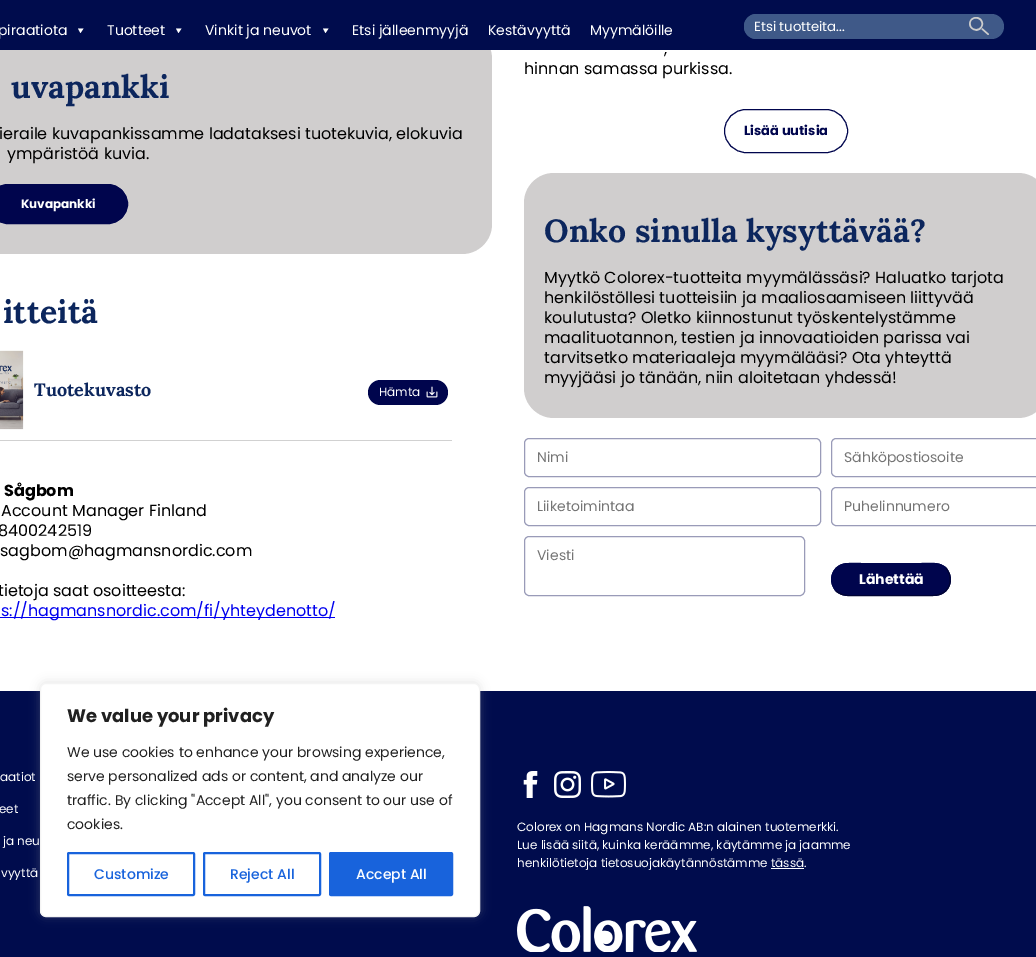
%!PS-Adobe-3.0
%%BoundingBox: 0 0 1036 957
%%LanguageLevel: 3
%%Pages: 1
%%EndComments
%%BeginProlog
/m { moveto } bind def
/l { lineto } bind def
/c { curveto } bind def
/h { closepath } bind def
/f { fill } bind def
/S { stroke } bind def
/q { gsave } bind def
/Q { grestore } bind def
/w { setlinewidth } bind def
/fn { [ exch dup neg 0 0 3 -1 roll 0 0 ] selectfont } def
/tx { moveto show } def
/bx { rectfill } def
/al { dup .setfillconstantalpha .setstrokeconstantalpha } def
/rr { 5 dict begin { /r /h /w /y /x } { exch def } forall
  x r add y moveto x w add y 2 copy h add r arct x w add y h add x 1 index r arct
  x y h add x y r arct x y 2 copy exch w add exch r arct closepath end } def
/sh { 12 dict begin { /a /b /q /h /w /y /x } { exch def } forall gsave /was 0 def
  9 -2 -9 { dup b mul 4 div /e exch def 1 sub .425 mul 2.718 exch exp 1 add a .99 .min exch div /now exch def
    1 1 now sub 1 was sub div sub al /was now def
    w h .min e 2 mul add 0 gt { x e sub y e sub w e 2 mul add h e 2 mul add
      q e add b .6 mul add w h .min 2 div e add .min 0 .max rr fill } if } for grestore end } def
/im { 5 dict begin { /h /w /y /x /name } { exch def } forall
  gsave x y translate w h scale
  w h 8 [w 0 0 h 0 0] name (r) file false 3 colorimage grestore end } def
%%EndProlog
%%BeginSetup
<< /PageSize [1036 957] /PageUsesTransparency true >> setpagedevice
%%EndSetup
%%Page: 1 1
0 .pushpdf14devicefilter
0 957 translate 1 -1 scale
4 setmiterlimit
1 setgray
0 0 1036 957 bx
0.816 0.808 0.808 setrgbcolor
-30 29 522 225 30 rr f
0 0.047 0.302 setrgbcolor
0 0 1036 50 bx
/Poppins-Regular 14 fn
1 setgray
(piraatiota) -2 35 tx
83.5 28.5 m 80.5 33 l 78 28.5 l h f
(Tuotteet) 107 35 tx
181.5 28.5 m 178.5 33 l 176 28.5 l h f
(Vinkit ja neuvot) 205 35 tx
328.5 28.5 m 325.5 33 l 323 28.5 l h f
(Etsi jälleenmyyjä) 352 35 tx
(Kestävyyttä) 488 35 tx
(Myymälöille) 590 35 tx
0.247 0.349 0.533 setrgbcolor
744 14 260 25 12.5 rr f
744 14 222 25 12.5 rr f
/Poppins-Regular 13.25 fn
1 setgray
(Etsi tuotteita...) 754 31 tx
(image0.raw) 969 17 20 18 im
/Lora-Bold 32 fn
0.047 0.149 0.365 setrgbcolor
(uvapankki) 11 98 tx
/Poppins-Regular 16 fn
0 setgray
(ieraile kuvapankissamme ladataksesi tuotekuvia, elokuvia) -1 139 tx
(ympäristöä kuvia.) 7 159 tx
0 0.02 0.302 setrgbcolor
-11.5 184.5 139 39 19.5 rr q f Q
S
/Poppins-Bold 12 fn
1 setgray
(Kuvapankki) 21 208 tx
/Lora-Bold 32 fn
0.047 0.149 0.365 setrgbcolor
(itteitä) 3 323 tx
0.82 setgray
0 440 452 1 bx
(image1.raw) 0 350 24 80 im
/Lora-Bold 18 fn
0.047 0.149 0.365 setrgbcolor
(Tuotekuvasto) 34 396 tx
0 0.02 0.302 setrgbcolor
368 380 80 25 12.5 rr f
/Poppins-Regular 12 fn
1 setgray
(Hämta) 379 396 tx
(image2.raw) 426 386 12 12 im
/Poppins-Bold 16 fn
0 setgray
(Sågbom) 4 496 tx
/Poppins-Regular 16 fn
(Account Manager Finland) 1 516 tx
(8400242519) -2 536 tx
(sagbom@hagmansnordic.com) 0 556 tx
(tietoja saat osoitteesta:) -2 596 tx
0 0 0.933 setrgbcolor
0 617 335 1 bx
(s://hagmansnordic.com/fi/yhteydenotto/) 1 616 tx
0 setgray
(,) 664 54 tx
(hinnan samassa purkissa.) 524 74 tx
0 0.02 0.302 setrgbcolor
724.5 109.5 123 43 21.5 rr S
/Poppins-Bold 13 fn
(Lisää uutisia) 744 135 tx
0.816 0.808 0.808 setrgbcolor
524 173 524 245 30 rr f
/Lora-Bold 32 fn
0.047 0.149 0.365 setrgbcolor
(Onko sinulla kysyttävää?) 544 242 tx
/Poppins-Regular 16 fn
0 setgray
(Myytkö Colorex-tuotteita myymälässäsi? Haluatko tarjota) 544 283 tx
(henkilöstöllesi tuotteisiin ja maaliosaamiseen liittyvää) 544 303 tx
(koulutusta? Oletko kiinnostunut työskentelystämme) 544 323 tx
(maalituotannon, testien ja innovaatioiden parissa vai) 544 343 tx
(tarvitsetko materiaaleja myymälääsi? Ota yhteyttä) 544 363 tx
(myyjääsi jo tänään, niin aloitetaan yhdessä!) 544 383 tx
0.6 0.608 0.722 setrgbcolor
524.5 438.5 296 38 4.5 rr S
/Poppins-Regular 14 fn
0.459 setgray
(Nimi) 537 462 tx
0.6 0.608 0.722 setrgbcolor
831.5 438.5 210 38 4.5 rr S
0.459 setgray
(Sähköpostiosoite) 844 462 tx
0.6 0.608 0.722 setrgbcolor
524.5 487.5 296 38 4.5 rr S
0.459 setgray
(Liiketoimintaa) 537 511 tx
0.6 0.608 0.722 setrgbcolor
831.5 487.5 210 38 4.5 rr S
0.459 setgray
(Puhelinnumero) 844 511 tx
0.6 0.608 0.722 setrgbcolor
524.5 536.5 280 59 4.5 rr S
0.459 setgray
(Viesti) 537 560 tx
0 0.02 0.302 setrgbcolor
831 563 120 33 16.5 rr f
0 0.012 0.2 setrgbcolor
946 568 m 949.5 572 951 577.5 950 582.5 c 947 598 931.5 595.5 920 595.5 c 862 595.5 l 853.5 595.5 843 597.5 836 591 c S
0 0.02 0.302 setrgbcolor
836 591 m 832.5 587 831 581.5 832 576.5 c 835 561 850.5 563.5 862 563.5 c 920 563.5 l 928.5 563.5 939 561.5 946 568 c S
/Poppins-Bold 14 fn
1 setgray
(Lähettää) 859 584 tx
0 0.047 0.302 setrgbcolor
0 691 1036 266 bx
0.675 0.671 0.671 setrgbcolor
40 682 440 234 6 5 0.3 sh
1 setgray
40.5 683.5 439 233 5.5 rr q f Q
0.957 setgray
S
/Poppins-Bold 18 fn
0.129 setgray
(We value your privacy) 67 722 tx
/Poppins-Regular 14 fn
(We use cookies to enhance your browsing experience,) 67 757 tx
(serve personalized ads or content, and analyze our) 67 781 tx
(traffic. By clicking "Accept All", you consent to our use of) 67 805 tx
(cookies.) 67 829 tx
0.094 0.388 0.863 setrgbcolor
2 w
68 853 126 42 1 rr S
/Poppins-Medium 14 fn
(Customize) 94 879 tx
204 853 116 42 1 rr S
(Reject All) 230 879 tx
330 853 122 42 1 rr q f Q
S
1 setgray
(Accept All) 356 879 tx
/Poppins-Regular 12 fn
(aatiot) 0 781 tx
(eet) -1 813 tx
(ja neu) 3 845 tx
(vyyttä) 1 877 tx
(image3.raw) 523 771 15 27 im
(image4.raw) 554 771 27 27 im
(image5.raw) 591 771 35 27 im
(Colorex on Hagmans Nordic AB:n alainen tuotemerkki.) 517 831 tx
(Lue lisää siitä, kuinka keräämme, käytämme ja jaamme) 517 849 tx
(henkilötietoja tietosuojakäytännöstämme tässä.) 517 867 tx
771 868 33 1 bx
(image6.raw) 517 906 180 46 im
.poppdf14devicefilter showpage
%%EOF
